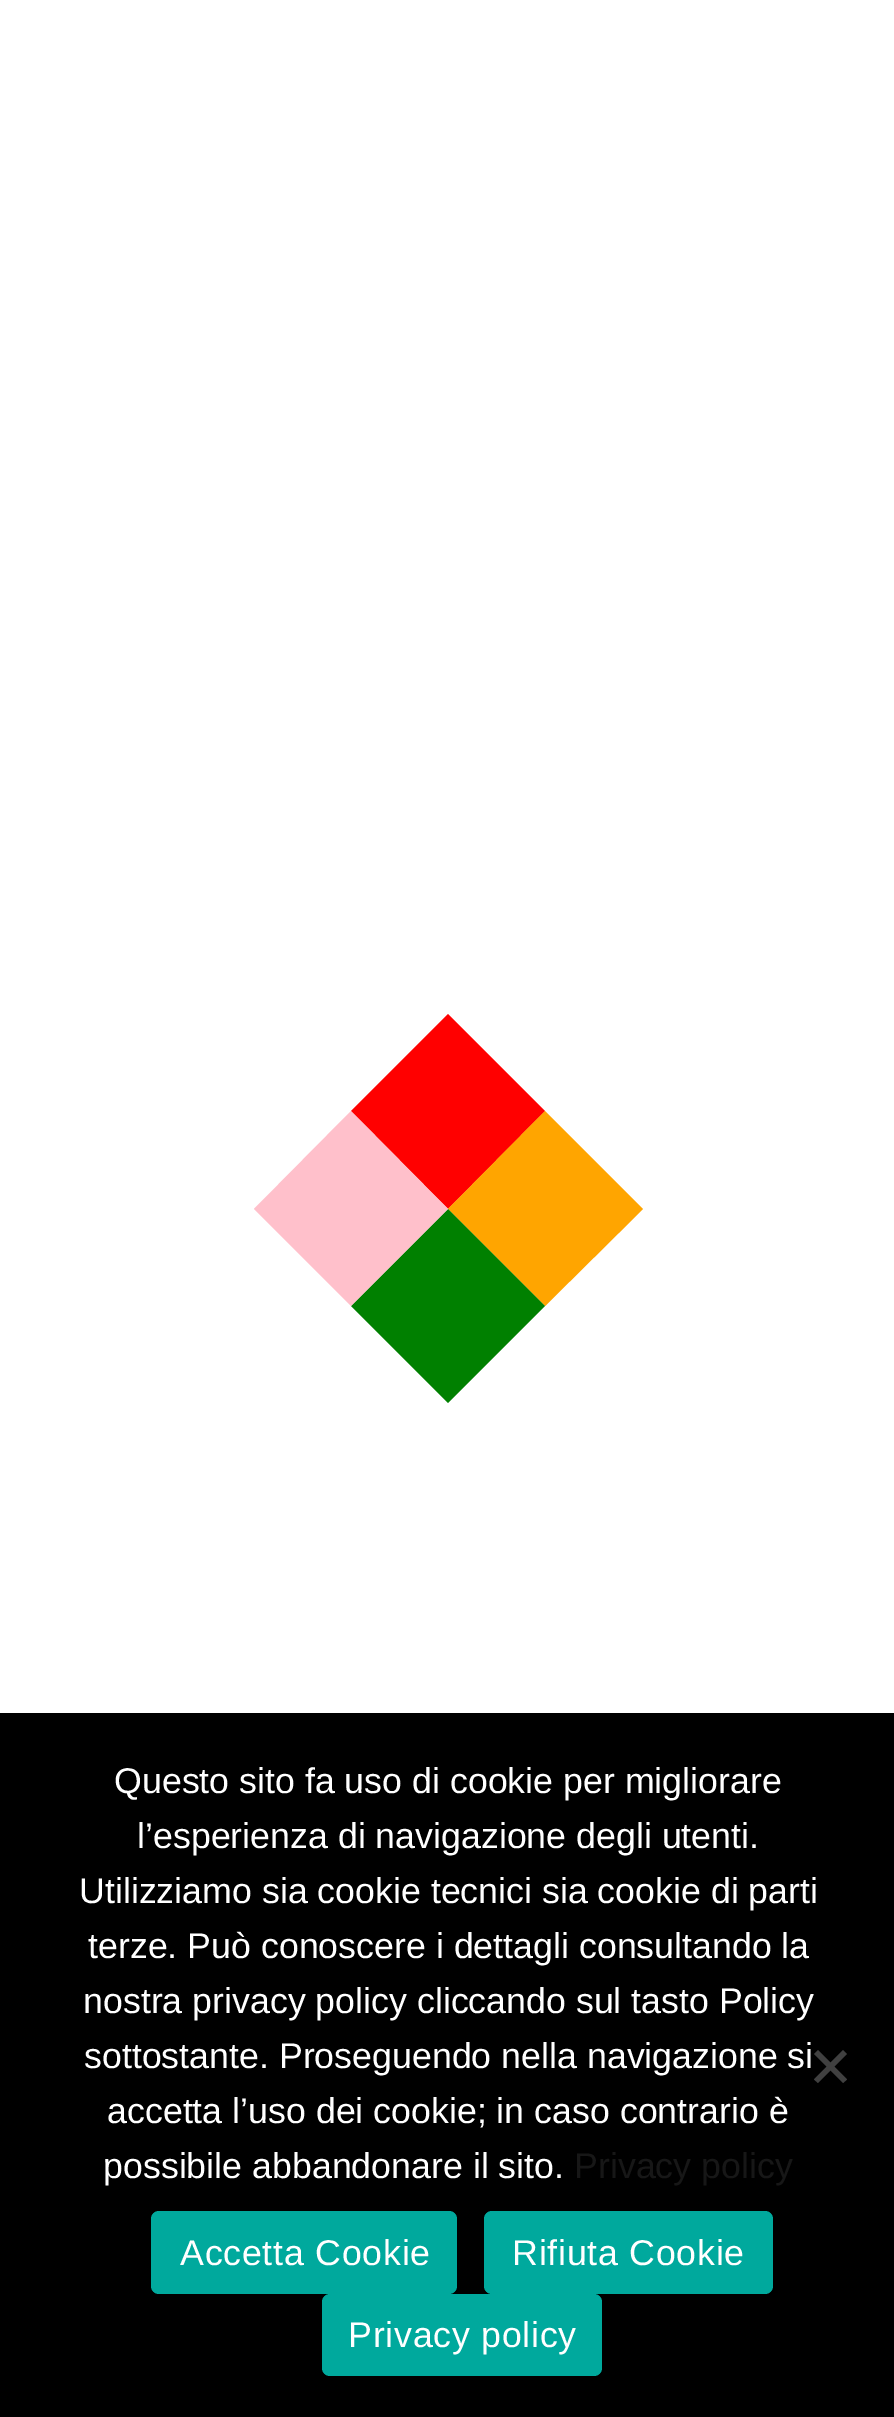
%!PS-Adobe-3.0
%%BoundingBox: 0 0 894 2417
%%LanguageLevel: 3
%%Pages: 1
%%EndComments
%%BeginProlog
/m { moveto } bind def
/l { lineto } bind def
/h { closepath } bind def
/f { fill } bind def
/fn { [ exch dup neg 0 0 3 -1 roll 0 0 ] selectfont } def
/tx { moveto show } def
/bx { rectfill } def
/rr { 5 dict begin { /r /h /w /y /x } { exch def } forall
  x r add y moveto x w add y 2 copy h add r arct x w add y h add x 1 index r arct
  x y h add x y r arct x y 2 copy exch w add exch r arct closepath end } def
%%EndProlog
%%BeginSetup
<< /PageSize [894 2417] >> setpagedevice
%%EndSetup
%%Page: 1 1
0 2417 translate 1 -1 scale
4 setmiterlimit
1 setgray
0 0 894 2417 bx
1 0 0 setrgbcolor
448 1014 m 545 1111 l 448 1209 l 351 1111 l h f
1 0.647 0 setrgbcolor
545 1111 m 643 1209 l 545 1306 l 448 1209 l h f
0 0.502 0 setrgbcolor
448 1209 m 545 1306 l 448 1403 l 351 1306 l h f
1 0.753 0.796 setrgbcolor
351 1111 m 448 1209 l 351 1306 l 254 1209 l h f
0 setgray
0 1713 894 704 bx
/LiberationSans-Regular 35.75 fn
1 setgray
(Questo sito fa uso di cookie per migliorare) 114 1793 tx
(l’esperienza di navigazione degli utenti.) 137 1848 tx
(Utilizziamo sia cookie tecnici sia cookie di parti) 79 1903 tx
(terze. Può conoscere i dettagli consultando la) 88 1958 tx
(nostra privacy policy cliccando sul tasto Policy) 83 2013 tx
(sottostante. Proseguendo nella navigazione si) 84 2068 tx
(accetta l’uso dei cookie; in caso contrario è) 107 2123 tx
(possibile abbandonare il sito.) 103 2178 tx
0.09 setgray
(Privacy policy) 574 2178 tx
0.251 setgray
843 2050 m 847 2054 l 818 2083 l 814 2079.5 l h f
814 2054 m 818 2050 l 847 2079.5 l 843 2083 l h f
0 0.663 0.616 setrgbcolor
151 2211 306 83 8 rr f
1 setgray
180 2265 m 0.75 0 (Accetta Cookie) ashow
0 0.663 0.616 setrgbcolor
484 2211 289 83 8 rr f
1 setgray
512 2265 m 0.75 0 (Rifiuta Cookie) ashow
0 0.663 0.616 setrgbcolor
322 2294 280 82 8 rr f
1 setgray
348 2347 m 0.75 0 (Privacy policy) ashow
showpage
%%EOF
